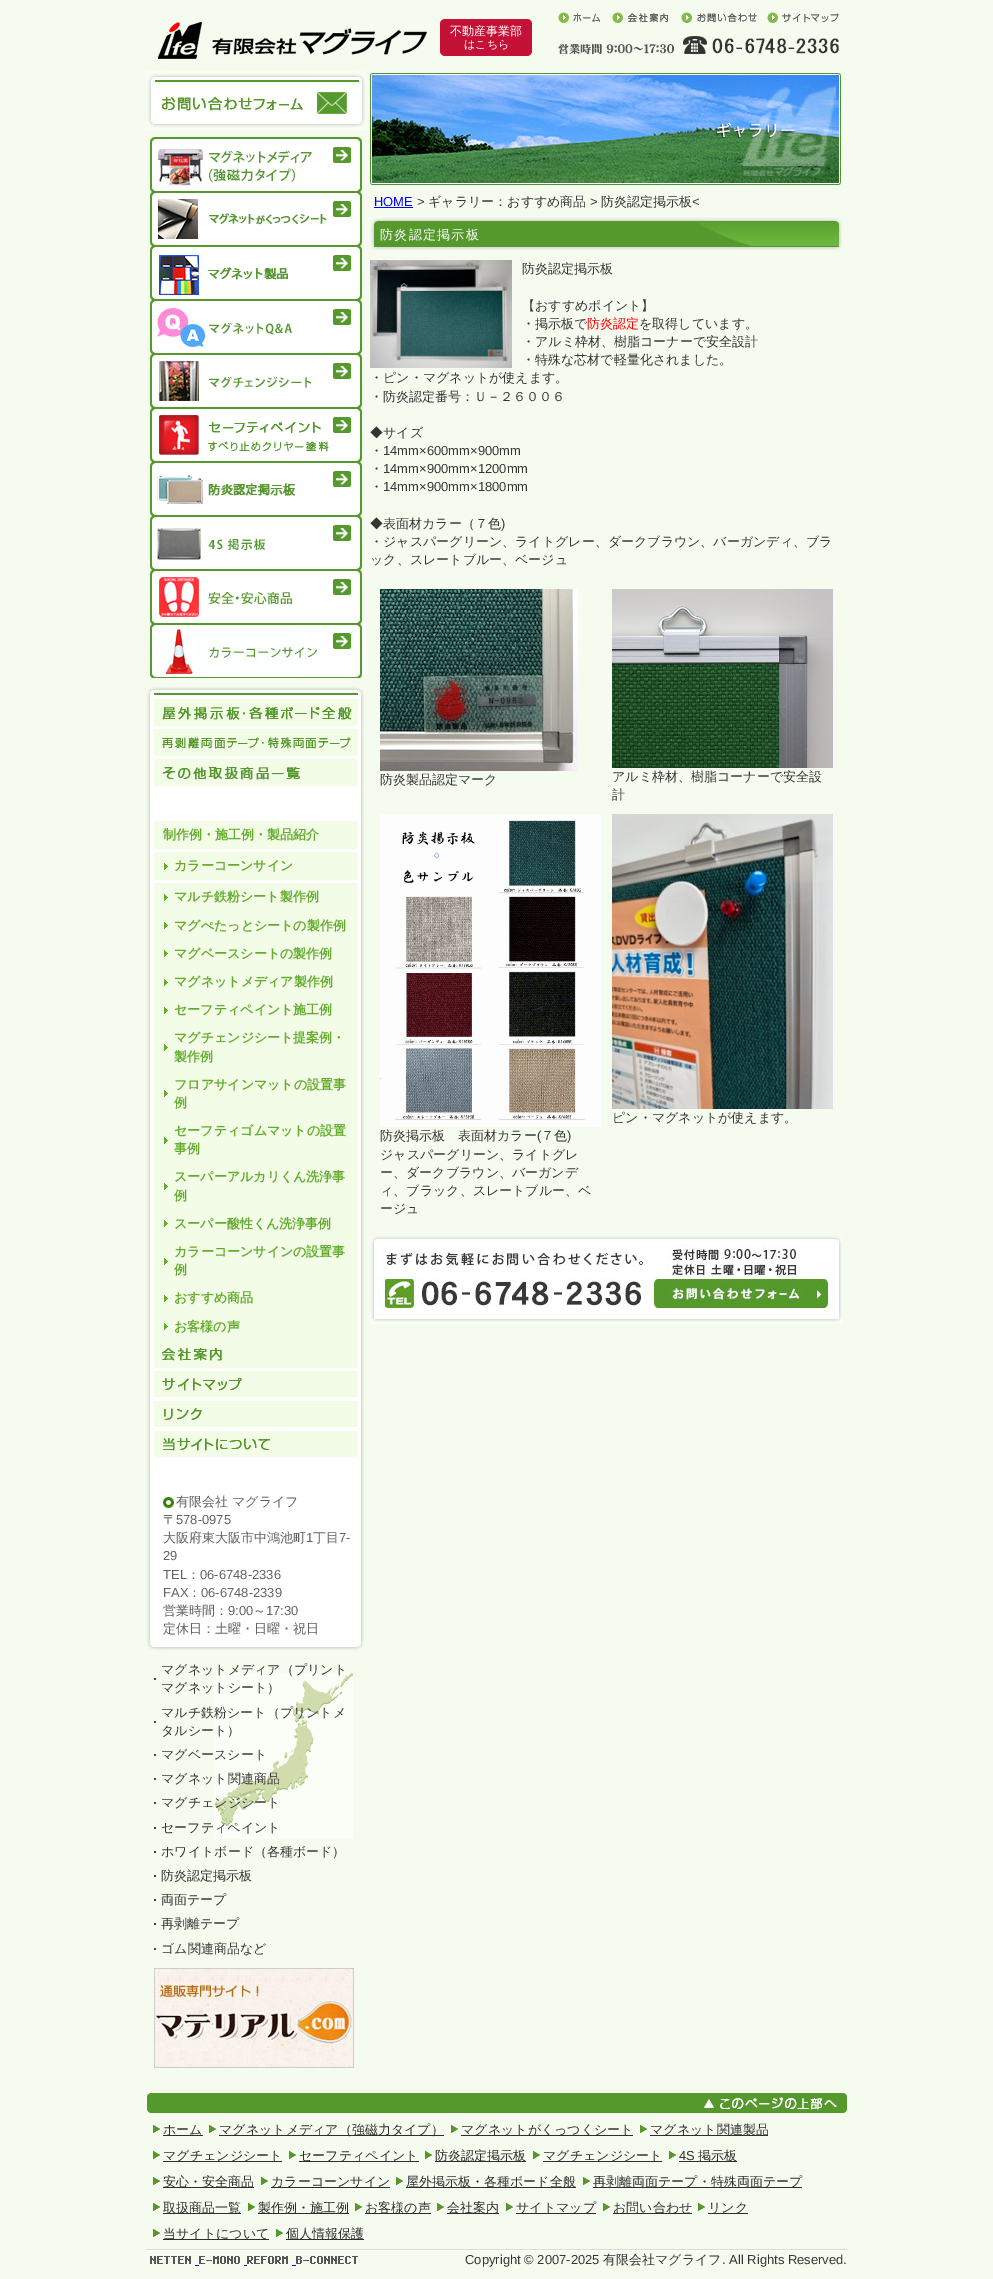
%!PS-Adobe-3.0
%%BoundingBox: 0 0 993 2279
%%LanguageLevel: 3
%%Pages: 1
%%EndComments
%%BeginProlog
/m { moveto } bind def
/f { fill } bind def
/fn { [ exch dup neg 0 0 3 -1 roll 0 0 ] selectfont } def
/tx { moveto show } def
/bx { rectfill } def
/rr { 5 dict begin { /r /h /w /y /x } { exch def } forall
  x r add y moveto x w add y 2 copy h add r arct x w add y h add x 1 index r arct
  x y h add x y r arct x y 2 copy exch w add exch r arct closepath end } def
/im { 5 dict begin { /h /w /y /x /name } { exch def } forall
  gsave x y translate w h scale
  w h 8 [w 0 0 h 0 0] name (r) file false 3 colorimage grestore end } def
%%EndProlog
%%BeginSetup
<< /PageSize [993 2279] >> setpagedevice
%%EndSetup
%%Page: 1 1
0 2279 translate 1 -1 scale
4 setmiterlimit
0.965 0.984 0.937 setrgbcolor
0 0 993 2279 bx
(image0.raw) 158 12 681 47 im
0.769 0.067 0.212 setrgbcolor
440 19 92 37 5 rr f
/WenQuanYiZenHei-Medium 12 fn
1 setgray
(不動産事業部) 450 35 tx
/WenQuanYiZenHei-Medium 11 fn
(はこちら) 464 48 tx
(image1.raw) 370 73 471 112 im
/LiberationSans-Regular 13 fn
0 0 1 setrgbcolor
(HOME) 374 206 tx
374 207 39 1 bx
0.208 setgray
(>) 417 206 tx
/WenQuanYiZenHei-Medium 13 fn
(ギャラリー：おすすめ商品) 428 206 tx
/LiberationSans-Regular 13 fn
(>) 590 206 tx
/WenQuanYiZenHei-Medium 13 fn
(防炎認定掲示板) 601 206 tx
/LiberationSans-Regular 13 fn
(<) 692 206 tx
(image2.raw) 370 217 472 33 im
/WenQuanYiZenHei-Medium 13 fn
1 setgray
380 239 m 1.25 0 (防炎認定掲示板) ashow
(image3.raw) 370 260 142 108 im
0.208 setgray
(防炎認定掲示板) 522 273 tx
(【おすすめポイント】) 522 310 tx
(・掲示板で) 522 328 tx
1 0 0 setrgbcolor
(防炎認定) 587 328 tx
0.208 setgray
(を取得しています。) 639 328 tx
(・アルミ枠材、樹脂コーナーで安全設計) 522 346 tx
(・特殊な芯材で軽量化されました。) 522 364 tx
(・ピン・マグネットが使えます。) 370 382 tx
(・防炎認定番号：Ｕ－２６００６) 370 401 tx
(◆サイズ) 370 437 tx
(・) 370 455 tx
/LiberationSans-Regular 13 fn
(14mm×600mm×900mm) 383 455 tx
/WenQuanYiZenHei-Medium 13 fn
(・) 370 473 tx
/LiberationSans-Regular 13 fn
(14mm×900mm×1200mm) 383 473 tx
/WenQuanYiZenHei-Medium 13 fn
(・) 370 491 tx
/LiberationSans-Regular 13 fn
(14mm×900mm×1800mm) 383 491 tx
/WenQuanYiZenHei-Medium 13 fn
(◆表面材カラー（７色) 370 528 tx
/LiberationSans-Regular 13 fn
(\)) 501 528 tx
/WenQuanYiZenHei-Medium 13 fn
(・ジャスパーグリーン、ライトグレー、ダークブラウン、バーガンディ、ブラ) 370 546 tx
(ック、スレートブルー、ベージュ) 370 564 tx
(image4.raw) 380 589 198 182 im
(防炎製品認定マーク) 380 784 tx
(image5.raw) 612 589 221 179 im
(アルミ枠材、樹脂コーナーで安全設) 612 781 tx
(計) 612 799 tx
(image6.raw) 612 814 221 295 im
(ピン・マグネットが使えます。) 612 1122 tx
(image7.raw) 380 814 221 313 im
(防炎掲示板　表面材カラー) 380 1140 tx
/LiberationSans-Regular 13 fn
(\() 537 1140 tx
/WenQuanYiZenHei-Medium 13 fn
(７色) 541 1140 tx
/LiberationSans-Regular 13 fn
(\)) 567 1140 tx
/WenQuanYiZenHei-Medium 13 fn
(ジャスパーグリーン、ライトグレ) 380 1159 tx
(ー、ダークブラウン、バーガンデ) 380 1177 tx
(ィ、ブラック、スレートブルー、ベ) 380 1195 tx
(ージュ) 380 1213 tx
(image8.raw) 370 1236 473 88 im
(image9.raw) 146 71 220 59 im
(image10.raw) 150 137 212 55 im
(image11.raw) 150 192 212 54 im
(image12.raw) 150 246 212 54 im
(image13.raw) 150 300 212 54 im
(image14.raw) 150 354 212 54 im
(image15.raw) 150 408 212 54 im
(image16.raw) 150 462 212 54 im
(image17.raw) 150 516 212 54 im
(image18.raw) 147 570 215 54 im
(image19.raw) 146 624 220 54 im
(image20.raw) 146 699 218 794 im
(image21.raw) 146 686 218 13 im
(image22.raw) 154 699 204 27 im
(image23.raw) 154 729 204 27 im
(image24.raw) 154 759 204 27 im
0.949 0.988 0.902 setrgbcolor
154 821 204 28 bx
/WenQuanYiZenHei-Bold 13 fn
0.388 0.675 0.176 setrgbcolor
(制作例・施工例・製品紹介) 163 839 tx
0.949 0.988 0.902 setrgbcolor
154 852 204 28 bx
(image25.raw) 164 863 4 7 im
0.388 0.675 0.176 setrgbcolor
(カラーコーンサイン) 174 870 tx
0.949 0.988 0.902 setrgbcolor
154 883 204 458 bx
(image25.raw) 164 894 4 7 im
0.388 0.675 0.176 setrgbcolor
(マルチ鉄粉シート製作例) 174 901 tx
(image25.raw) 164 922 4 7 im
(マグぺたっとシートの製作例) 174 930 tx
(image25.raw) 164 950 4 7 im
(マグベースシートの製作例) 174 958 tx
(image25.raw) 164 979 4 7 im
(マグネットメディア製作例) 174 986 tx
(image25.raw) 164 1007 4 7 im
(セーフティペイント施工例) 174 1014 tx
(image25.raw) 164 1044 4 7 im
(マグチェンジシート提案例・) 174 1042 tx
(製作例) 174 1061 tx
(image25.raw) 164 1090 4 7 im
(フロアサインマットの設置事) 174 1089 tx
(例) 174 1107 tx
(image25.raw) 164 1137 4 7 im
(セーフティゴムマットの設置) 174 1135 tx
(事例) 174 1153 tx
(image25.raw) 164 1183 4 7 im
(スーパーアルカリくん洗浄事) 174 1181 tx
(例) 174 1200 tx
(image25.raw) 164 1220 4 7 im
(スーパー酸性くん洗浄事例) 174 1228 tx
(image25.raw) 164 1258 4 7 im
(カラーコーンサインの設置事) 174 1256 tx
(例) 174 1274 tx
(image25.raw) 164 1295 4 7 im
(おすすめ商品) 174 1302 tx
(image25.raw) 164 1323 4 7 im
(お客様の声) 174 1331 tx
(image26.raw) 154 1341 204 27 im
(image27.raw) 154 1371 204 26 im
(image28.raw) 154 1401 204 26 im
(image29.raw) 154 1431 204 26 im
(image30.raw) 146 1493 218 147 im
(image31.raw) 163 1497 11 11 im
/WenQuanYiZenHei-Medium 13 fn
0.38 setgray
(有限会社 マグライフ) 176 1506 tx
(image32.raw) 146 1640 218 11 im
(〒) 163 1524 tx
/LiberationSans-Regular 13 fn
(578-0975) 176 1524 tx
/WenQuanYiZenHei-Medium 13 fn
(大阪府東大阪市中鴻池町) 163 1542 tx
/LiberationSans-Regular 13 fn
(1) 306 1542 tx
/WenQuanYiZenHei-Medium 13 fn
(丁目) 313 1542 tx
/LiberationSans-Regular 13 fn
(7-) 339 1542 tx
(29) 163 1560 tx
(TEL) 163 1579 tx
/WenQuanYiZenHei-Medium 13 fn
(：) 187 1579 tx
/LiberationSans-Regular 13 fn
(06-6748-2336) 200 1579 tx
(FAX) 163 1597 tx
/WenQuanYiZenHei-Medium 13 fn
(：) 188 1597 tx
/LiberationSans-Regular 13 fn
(06-6748-2339) 201 1597 tx
/WenQuanYiZenHei-Medium 13 fn
(営業時間：) 163 1615 tx
/LiberationSans-Regular 13 fn
(9:00) 228 1615 tx
/WenQuanYiZenHei-Medium 13 fn
(～) 253 1615 tx
/LiberationSans-Regular 13 fn
(17:30) 266 1615 tx
/WenQuanYiZenHei-Medium 13 fn
(定休日：土曜・日曜・祝日) 163 1633 tx
(image33.raw) 214 1673 139 166 im
0.267 setgray
154 1678 2 2 bx
0.208 setgray
(マグネットメディア（プリント) 161 1674 tx
(マグネットシート）) 161 1692 tx
0.267 setgray
154 1721 2 2 bx
0.208 setgray
(マルチ鉄粉シート（プリントメ) 161 1717 tx
(タルシート）) 161 1735 tx
0.267 setgray
154 1754 2 2 bx
0.208 setgray
(マグベースシート) 161 1759 tx
0.267 setgray
154 1778 2 2 bx
0.208 setgray
(マグネット関連商品) 161 1783 tx
0.267 setgray
154 1802 2 2 bx
0.208 setgray
(マグチェンジシート) 161 1807 tx
0.267 setgray
154 1827 2 2 bx
0.208 setgray
(セーフティペイント) 161 1832 tx
0.267 setgray
154 1851 2 2 bx
0.208 setgray
(ホワイトボード（各種ボード）) 161 1856 tx
0.267 setgray
154 1875 2 2 bx
0.208 setgray
(防炎認定掲示板) 161 1880 tx
0.267 setgray
154 1899 2 2 bx
0.208 setgray
(両面テープ) 161 1904 tx
0.267 setgray
154 1923 2 2 bx
0.208 setgray
(再剥離テープ) 161 1928 tx
0.267 setgray
154 1948 2 2 bx
0.208 setgray
(ゴム関連商品など) 161 1953 tx
(image34.raw) 154 1968 200 100 im
(image35.raw) 146 2093 701 20 im
(image36.raw) 146 2249 701 2 im
(image37.raw) 153 2125 7 8 im
0.18 setgray
163 2135 40 1 bx
(ホーム) 163 2134 tx
(image37.raw) 209 2125 7 8 im
219 2135 225 1 bx
(マグネットメディア（強磁力タイプ）) 219 2134 tx
(image37.raw) 451 2125 7 8 im
461 2135 172 1 bx
(マグネットがくっつくシート) 461 2134 tx
(image37.raw) 640 2125 7 8 im
650 2135 118 1 bx
(マグネット関連製品) 650 2134 tx
(image37.raw) 153 2151 7 8 im
163 2161 119 1 bx
(マグチェンジシート) 163 2160 tx
(image37.raw) 289 2151 7 8 im
299 2161 120 1 bx
(セーフティペイント) 299 2160 tx
(image37.raw) 425 2151 7 8 im
435 2161 91 1 bx
(防炎認定掲示板) 435 2160 tx
(image37.raw) 533 2151 7 8 im
543 2161 119 1 bx
(マグチェンジシート) 543 2160 tx
(image37.raw) 669 2151 7 8 im
/LiberationSans-Regular 13 fn
(4S) 679 2160 tx
679 2161 58 1 bx
/WenQuanYiZenHei-Medium 13 fn
(掲示板) 698 2160 tx
(image37.raw) 153 2177 7 8 im
163 2187 91 1 bx
(安心・安全商品) 163 2186 tx
(image37.raw) 261 2177 7 8 im
271 2187 119 1 bx
(カラーコーンサイン) 271 2186 tx
(image37.raw) 396 2177 7 8 im
406 2187 170 1 bx
(屋外掲示板・各種ボード全般) 406 2186 tx
(image37.raw) 583 2177 7 8 im
593 2187 209 1 bx
(再剥離両面テープ・特殊両面テープ) 593 2186 tx
(image37.raw) 153 2203 7 8 im
163 2213 78 1 bx
(取扱商品一覧) 163 2212 tx
(image37.raw) 248 2203 7 8 im
258 2213 91 1 bx
(製作例・施工例) 258 2212 tx
(image37.raw) 355 2203 7 8 im
365 2213 66 1 bx
(お客様の声) 365 2212 tx
(image37.raw) 437 2203 7 8 im
447 2213 52 1 bx
(会社案内) 447 2212 tx
(image37.raw) 506 2203 7 8 im
516 2213 80 1 bx
(サイトマップ) 516 2212 tx
(image37.raw) 603 2203 7 8 im
613 2213 79 1 bx
(お問い合わせ) 613 2212 tx
(image37.raw) 698 2203 7 8 im
708 2213 40 1 bx
(リンク) 708 2212 tx
(image37.raw) 153 2229 7 8 im
163 2239 106 1 bx
(当サイトについて) 163 2238 tx
(image37.raw) 276 2229 7 8 im
286 2239 78 1 bx
(個人情報保護) 286 2238 tx
(image38.raw) 150 2256 41 8 im
(image39.raw) 199 2256 41 8 im
(image40.raw) 247 2256 41 8 im
(image41.raw) 296 2256 62 8 im
0 0 0.933 setrgbcolor
195 2265 4 1 bx
244 2265 3 1 bx
292 2265 4 1 bx
/LiberationSans-Regular 13 fn
0.208 setgray
(Copyright © 2007-2025) 465 2264 tx
/WenQuanYiZenHei-Medium 13 fn
(有限会社マグライフ) 603 2264 tx
/LiberationSans-Regular 13 fn
(. All Rights Reserved.) 722 2264 tx
showpage
%%EOF
